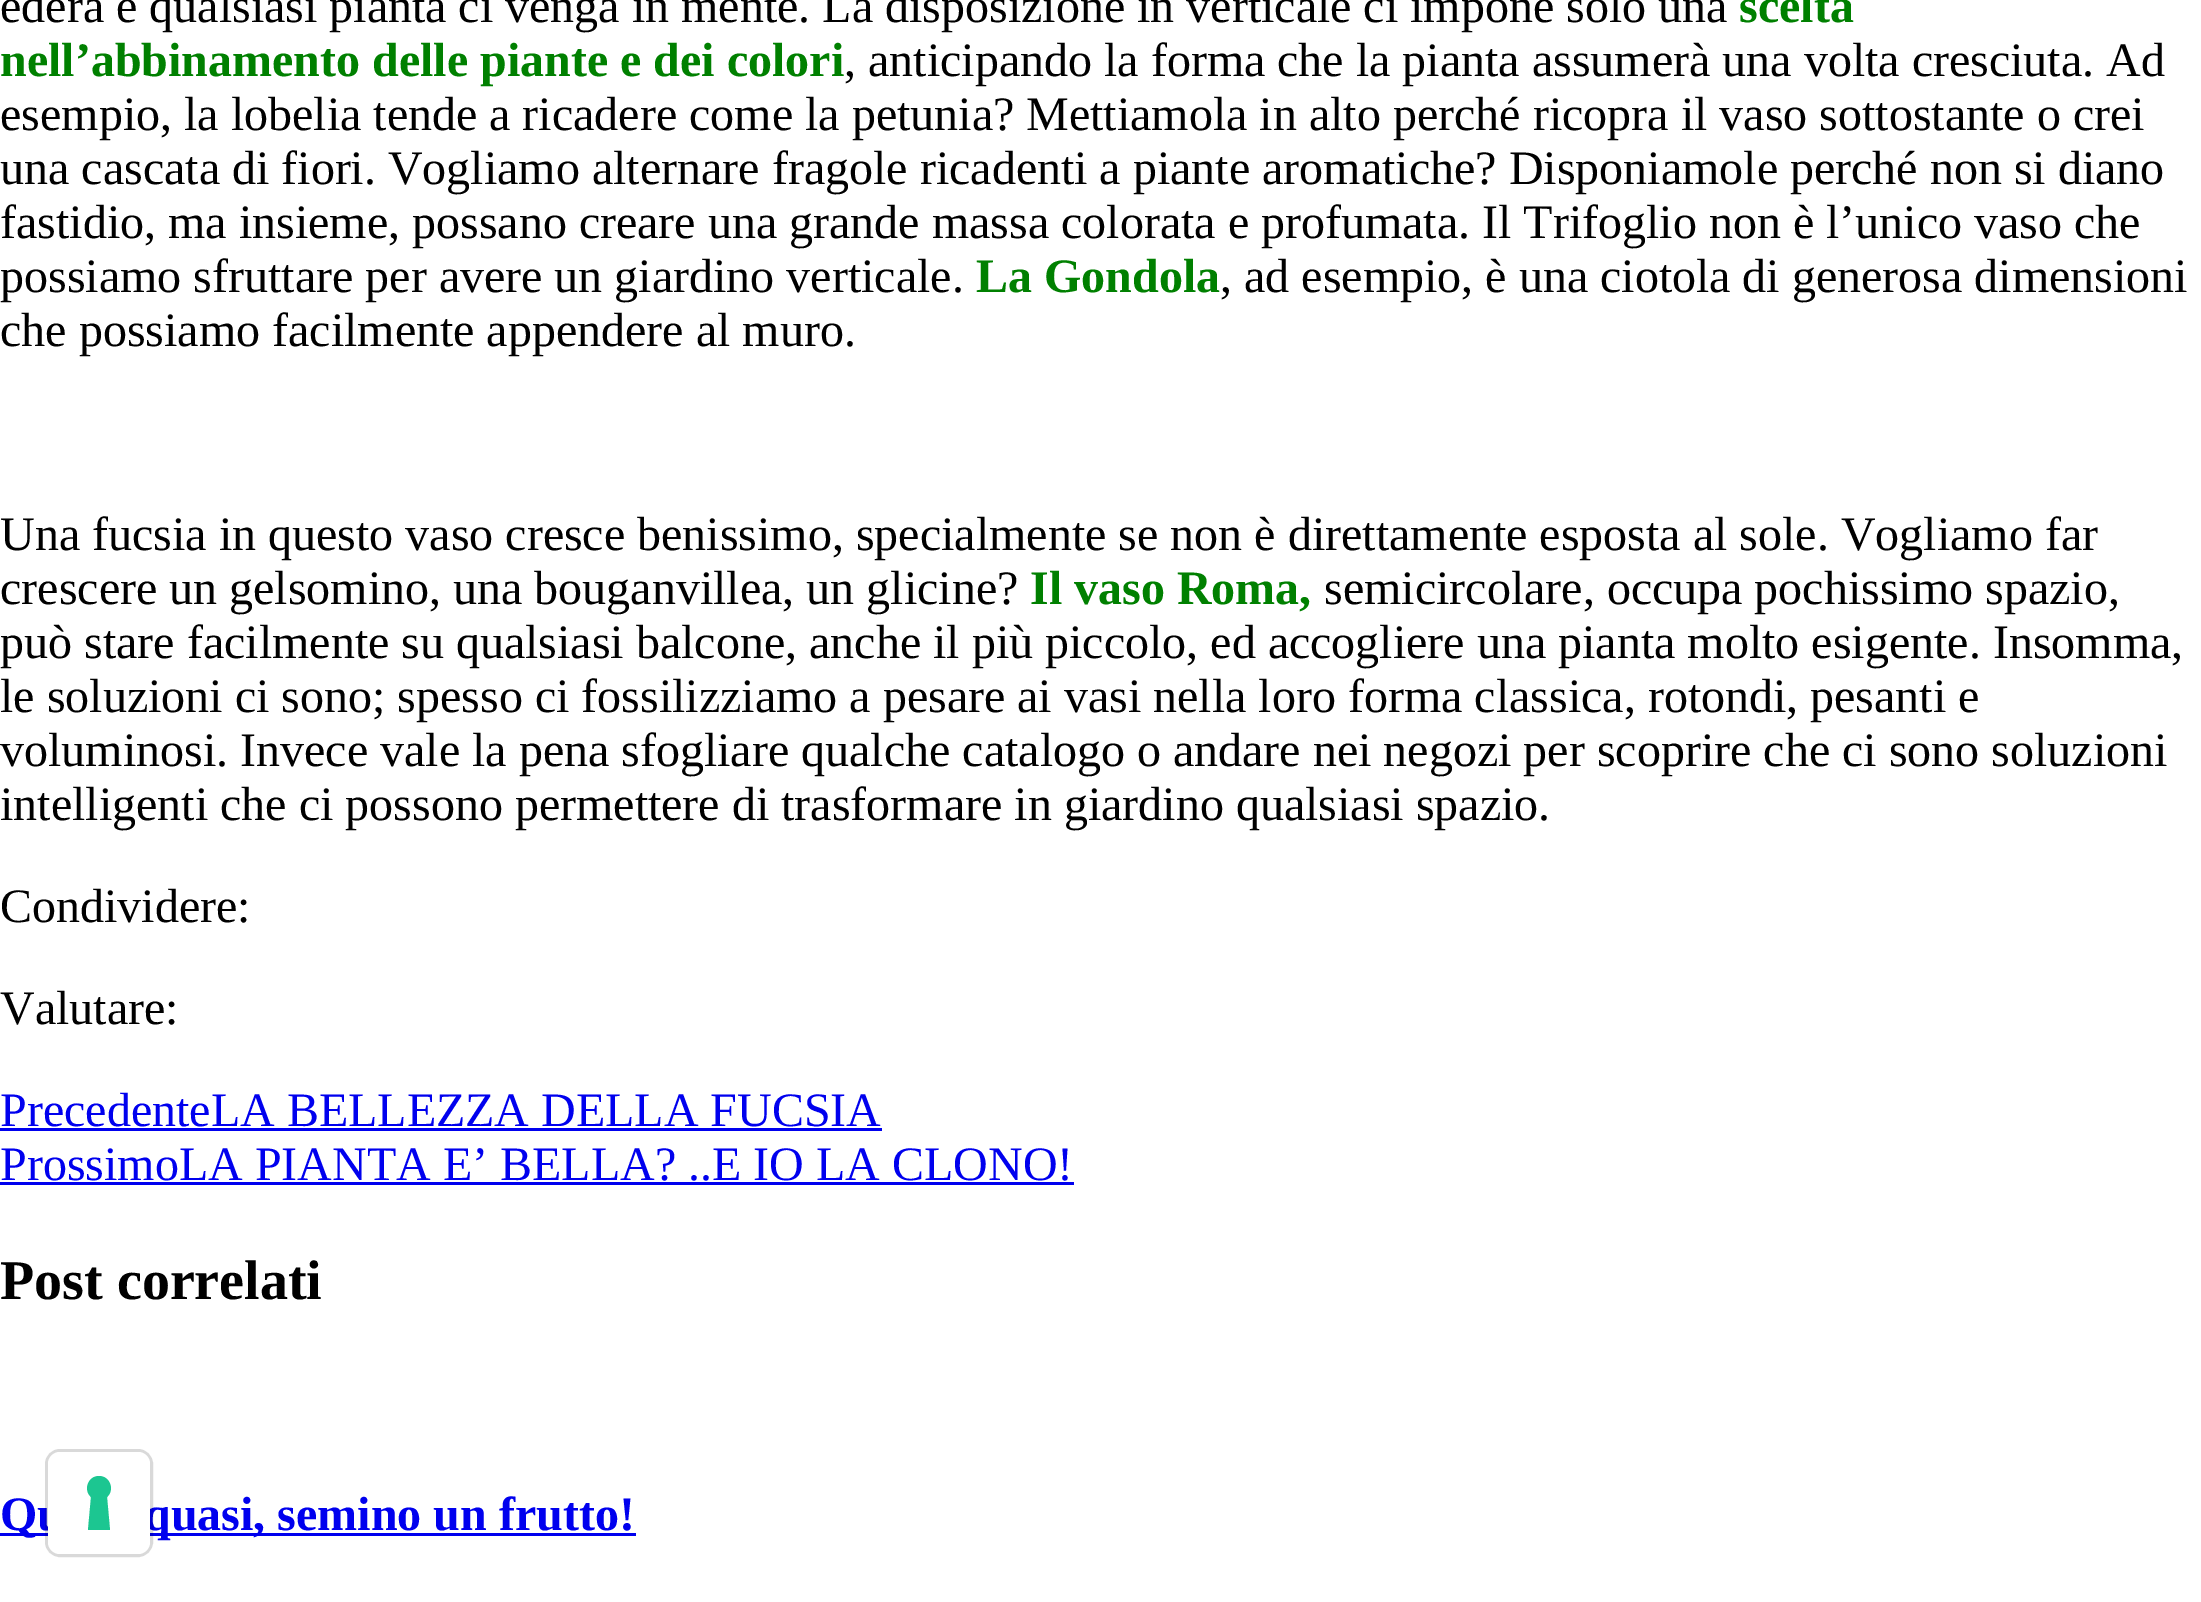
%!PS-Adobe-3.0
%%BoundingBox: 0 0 2201 1602
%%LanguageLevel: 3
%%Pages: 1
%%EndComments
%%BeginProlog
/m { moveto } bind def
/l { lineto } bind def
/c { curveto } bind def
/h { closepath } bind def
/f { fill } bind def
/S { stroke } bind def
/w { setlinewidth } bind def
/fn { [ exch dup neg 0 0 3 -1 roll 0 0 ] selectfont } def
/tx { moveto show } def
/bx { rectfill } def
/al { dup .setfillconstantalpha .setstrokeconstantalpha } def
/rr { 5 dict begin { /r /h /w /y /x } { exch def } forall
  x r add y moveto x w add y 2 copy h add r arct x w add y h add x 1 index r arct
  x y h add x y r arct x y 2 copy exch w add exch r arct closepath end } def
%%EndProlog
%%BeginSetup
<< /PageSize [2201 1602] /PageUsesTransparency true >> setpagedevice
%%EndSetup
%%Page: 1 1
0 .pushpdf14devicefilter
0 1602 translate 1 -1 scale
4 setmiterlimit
1 setgray
0 0 2201 1602 bx
/LiberationSerif-Regular 48 fn
0 setgray
(edera e qualsiasi pianta ci venga in mente. La disposizione in verticale ci impone solo una) 0 22 tx
/LiberationSerif-Bold 48 fn
0 0.502 0 setrgbcolor
(scelta) 1739 22 tx
(nell’abbinamento delle piante e dei colori) 0 76 tx
/LiberationSerif-Regular 48 fn
0 setgray
(, anticipando la forma che la pianta assumerà una volta cresciuta. Ad) 844 76 tx
(esempio, la lobelia tende a ricadere come la petunia? Mettiamola in alto perché ricopra il vaso sottostante o crei) 0 130 tx
(una cascata di fiori. Vogliamo alternare fragole ricadenti a piante aromatiche? Disponiamole perché non si diano) 0 184 tx
(fastidio, ma insieme, possano creare una grande massa colorata e profumata. Il Trifoglio non è l’unico vaso che) 0 238 tx
(possiamo sfruttare per avere un giardino verticale.) 0 292 tx
/LiberationSerif-Bold 48 fn
0 0.502 0 setrgbcolor
(La Gondola) 976 292 tx
/LiberationSerif-Regular 48 fn
0 setgray
(, ad esempio, è una ciotola di generosa dimensioni) 1220 292 tx
(che possiamo facilmente appendere al muro.) 0 346 tx
(Una fucsia in questo vaso cresce benissimo, specialmente se non è direttamente esposta al sole. Vogliamo far) 0 550 tx
(crescere un gelsomino, una bouganvillea, un glicine?) 0 604 tx
/LiberationSerif-Bold 48 fn
0 0.502 0 setrgbcolor
(Il vaso Roma,) 1030 604 tx
/LiberationSerif-Regular 48 fn
0 setgray
(semicircolare, occupa pochissimo spazio,) 1324 604 tx
(può stare facilmente su qualsiasi balcone, anche il più piccolo, ed accogliere una pianta molto esigente. Insomma,) 0 658 tx
(le soluzioni ci sono; spesso ci fossilizziamo a pesare ai vasi nella loro forma classica, rotondi, pesanti e) 0 712 tx
(voluminosi. Invece vale la pena sfogliare qualche catalogo o andare nei negozi per scoprire che ci sono soluzioni) 0 766 tx
(intelligenti che ci possono permettere di trasformare in giardino qualsiasi spazio.) 0 820 tx
(Condividere:) 0 922 tx
(Valutare:) 0 1024 tx
0 0 0.933 setrgbcolor
(PrecedenteLA BELLEZZA DELLA FUCSIA) 0 1126 tx
0 1128 882 3 bx
(ProssimoLA PIANTA E’ BELLA? ..E IO LA CLONO!) 0 1180 tx
0 1182 1074 3 bx
/LiberationSerif-Bold 56 fn
0 setgray
(Post correlati) 0 1299 tx
0 0 0.933 setrgbcolor
0 1533 636 3 bx
/LiberationSerif-Bold 48 fn
(Qu) 0 1530 tx
(quasi, semino un frutto!) 144 1530 tx
0.15 al
0 setgray
3 w
46.5 1450.5 105 105 13.5 rr S
1 al
1 setgray
48 1452 102 102 12 rr f
0.11 0.776 0.569 setrgbcolor
99 1476 m 110 1476 115 1490 107 1497 c 110 1530 l 88 1530 l 91 1497 l 83 1490 88 1476 99 1476 c h eofill
.poppdf14devicefilter showpage
%%EOF
